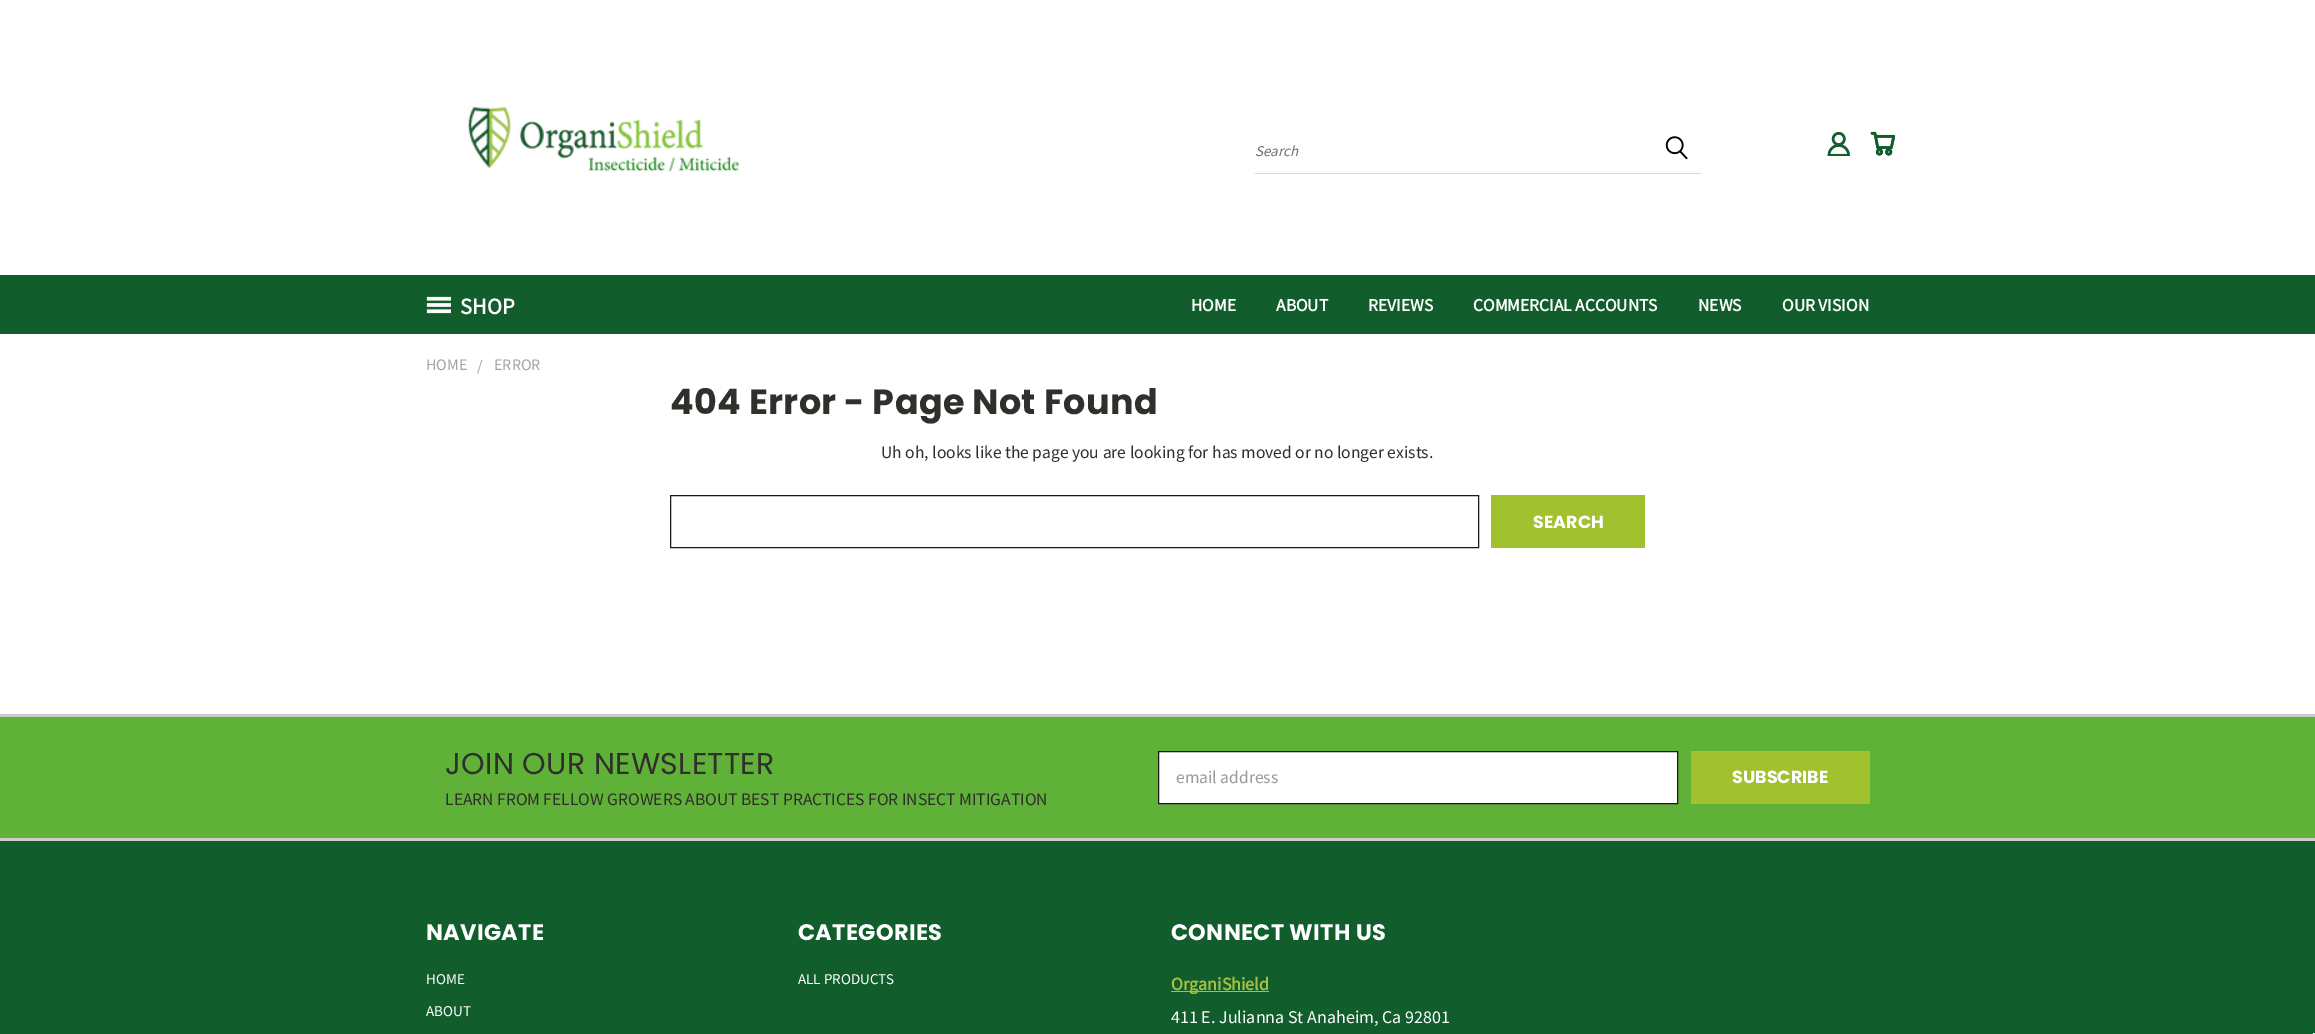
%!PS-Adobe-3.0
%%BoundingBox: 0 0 2315 1034
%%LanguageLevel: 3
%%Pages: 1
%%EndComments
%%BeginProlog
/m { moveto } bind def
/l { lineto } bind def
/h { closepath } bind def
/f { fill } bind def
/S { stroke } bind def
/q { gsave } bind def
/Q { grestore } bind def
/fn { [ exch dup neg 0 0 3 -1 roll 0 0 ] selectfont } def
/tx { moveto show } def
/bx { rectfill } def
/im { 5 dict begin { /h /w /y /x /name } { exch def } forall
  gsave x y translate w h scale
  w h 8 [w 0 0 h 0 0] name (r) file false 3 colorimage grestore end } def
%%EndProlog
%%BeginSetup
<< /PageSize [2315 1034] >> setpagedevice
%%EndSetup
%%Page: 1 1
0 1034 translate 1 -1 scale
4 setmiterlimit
1 setgray
0 0 2315 1034 bx
(image0.raw) 468 106 271 66 im
0.843 setgray
1255 173 446 1 bx
/SourceSansPro-Italic 15 fn
0.439 0.439 0.431 setrgbcolor
(Search) 1255 156 tx
(image1.raw) 1665 136 23 24 im
(image2.raw) 1827 131 23 25 im
(image3.raw) 1870 131 25 25 im
0.067 0.365 0.169 setrgbcolor
0 275 2315 59 bx
(image4.raw) 426 296 25 18 im
/SourceSansPro-Bold 22.5 fn
1 setgray
(SHOP) 460 314 tx
/SourceSansPro-Bold 17.5 fn
(HOME) 1191 311 tx
(ABOUT) 1276 311 tx
(REVIEWS) 1368 311 tx
(COMMERCIAL ACCOUNTS) 1473 311 tx
(NEWS) 1698 311 tx
(OUR VISION) 1782 311 tx
/SourceSansPro-Regular 16 fn
0.635 setgray
(HOME) 426 370 tx
(/) 477 371 tx
(ERROR) 494 370 tx
/Poppins-Bold 35 fn
0.184 0.184 0.169 setrgbcolor
670 414 m 0.3 0 (404 Error - Page Not Found) ashow
/SourceSansPro-Regular 17.5 fn
(Uh oh, looks like the page you are looking for has moved or no longer exists.) 881 458 tx
0.098 setgray
670.5 495.5 808 52 rectstroke
0.635 0.757 0.18 setrgbcolor
1491 495 154 53 bx
/Poppins-Bold 17.5 fn
1 setgray
(SEARCH) 1533 528 tx
0.376 0.694 0.22 setrgbcolor
0 717 2315 121 bx
0.804 0.8 0.8 setrgbcolor
0 714 2315 3 bx
/Poppins-Regular 30 fn
0.184 0.184 0.169 setrgbcolor
445 774 m 0.3 0 (JOIN OUR NEWSLETTER) ashow
/SourceSansPro-Regular 17.5 fn
(LEARN FROM FELLOW GROWERS ABOUT BEST PRACTICES FOR INSECT MITIGATION) 445 805 tx
1 setgray
1158.5 751.5 m 1677.5 751.5 l 1677.5 803.5 l 1158.5 803.5 l h q f Q
0.098 setgray
S
0.6 setgray
(email address) 1176 783 tx
0.635 0.757 0.18 setrgbcolor
1691 751 179 53 bx
/Poppins-Bold 17.5 fn
1 setgray
(SUBSCRIBE) 1732 783 tx
0.067 0.365 0.169 setrgbcolor
0 841 2315 193 bx
0.804 0.8 0.8 setrgbcolor
0 838 2315 3 bx
/Poppins-Bold 22.5 fn
1 setgray
426 940 m 0.3 0 (NAVIGATE) ashow
/SourceSansPro-Regular 15 fn
(HOME) 426 984 tx
(ABOUT) 426 1016 tx
/Poppins-Bold 22.5 fn
798 940 m 0.3 0 (CATEGORIES) ashow
/SourceSansPro-Regular 15 fn
(ALL PRODUCTS) 798 984 tx
/Poppins-Bold 22.5 fn
1171 940 m 0.3 0 (CONNECT WITH US) ashow
0.667 0.753 0.251 setrgbcolor
1171 991 98 1 bx
/SourceSansPro-Bold 18 fn
(OrganiShield) 1171 990 tx
/SourceSansPro-Regular 18 fn
1 setgray
(411 E. Julianna St Anaheim, Ca 92801) 1171 1023 tx
0.961 setgray
2313 1033 2 1 bx
showpage
%%EOF
